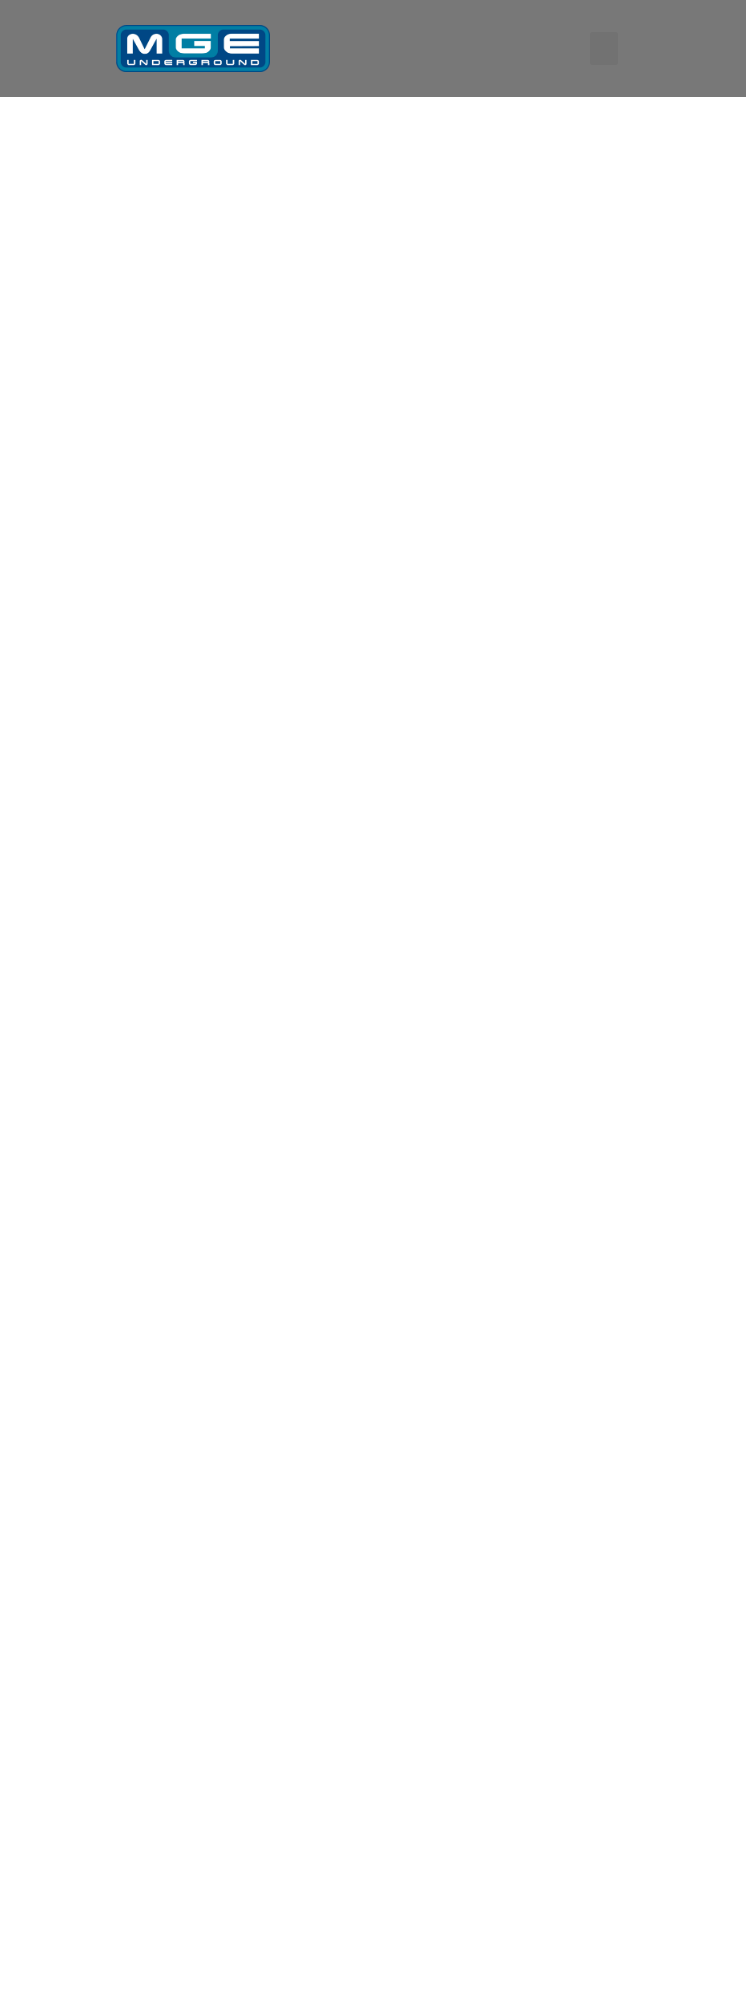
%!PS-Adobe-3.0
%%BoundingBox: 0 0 746 2002
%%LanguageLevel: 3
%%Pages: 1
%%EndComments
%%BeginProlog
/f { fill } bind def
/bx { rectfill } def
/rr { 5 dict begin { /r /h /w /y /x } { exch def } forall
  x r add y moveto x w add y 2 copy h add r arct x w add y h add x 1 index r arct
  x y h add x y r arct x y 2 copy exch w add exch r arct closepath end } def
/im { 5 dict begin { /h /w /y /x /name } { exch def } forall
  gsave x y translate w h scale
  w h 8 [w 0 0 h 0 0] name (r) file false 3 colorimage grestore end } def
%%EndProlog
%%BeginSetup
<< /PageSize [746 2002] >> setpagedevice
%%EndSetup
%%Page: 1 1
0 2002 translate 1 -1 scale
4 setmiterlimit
1 setgray
0 0 746 2002 bx
0.471 setgray
0 0 746 97 bx
(image0.raw) 116 25 154 47 im
0.447 setgray
590 32 28 33 3 rr f
showpage
%%EOF
